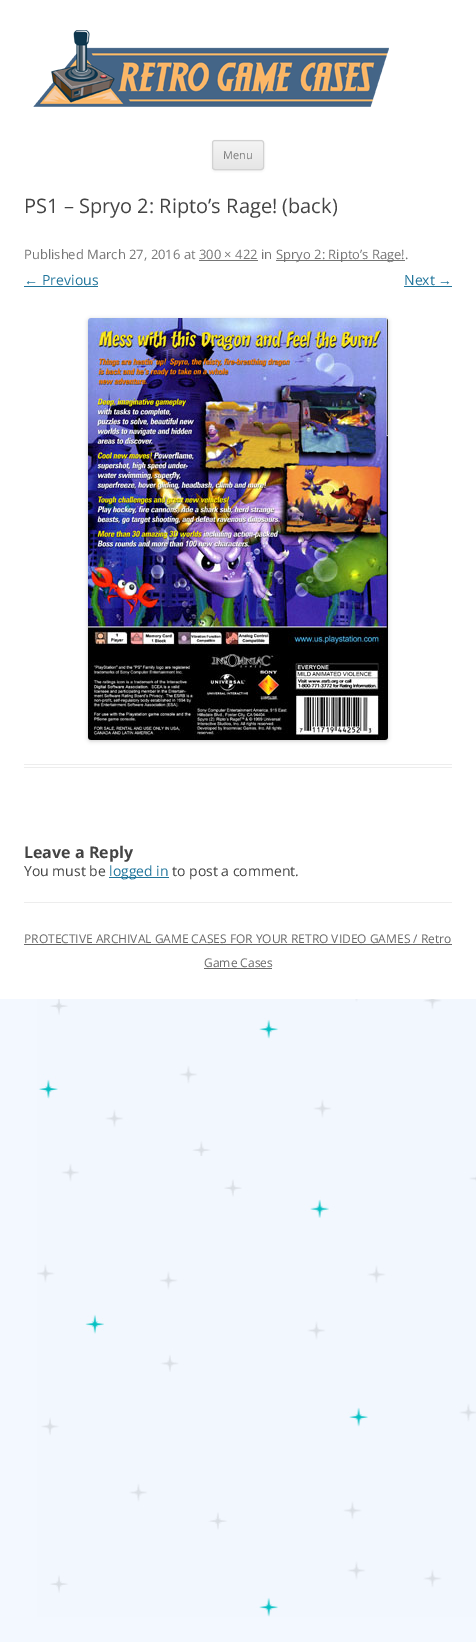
%!PS-Adobe-3.0
%%BoundingBox: 0 0 476 1642
%%LanguageLevel: 3
%%Pages: 1
%%EndComments
%%BeginProlog
/m { moveto } bind def
/l { lineto } bind def
/h { closepath } bind def
/S { stroke } bind def
/q { gsave } bind def
/Q { grestore } bind def
/fn { [ exch dup neg 0 0 3 -1 roll 0 0 ] selectfont } def
/tx { moveto show } def
/bx { rectfill } def
/al { dup .setfillconstantalpha .setstrokeconstantalpha } def
/rr { 5 dict begin { /r /h /w /y /x } { exch def } forall
  x r add y moveto x w add y 2 copy h add r arct x w add y h add x 1 index r arct
  x y h add x y r arct x y 2 copy exch w add exch r arct closepath end } def
/sh { 12 dict begin { /a /b /q /h /w /y /x } { exch def } forall gsave /was 0 def
  9 -2 -9 { dup b mul 4 div /e exch def 1 sub .425 mul 2.718 exch exp 1 add a .99 .min exch div /now exch def
    1 1 now sub 1 was sub div sub al /was now def
    w h .min e 2 mul add 0 gt { x e sub y e sub w e 2 mul add h e 2 mul add
      q e add b .6 mul add w h .min 2 div e add .min 0 .max rr fill } if } for grestore end } def
/im { 5 dict begin { /h /w /y /x /name } { exch def } forall
  gsave x y translate w h scale
  w h 8 [w 0 0 h 0 0] name (r) file false 3 colorimage grestore end } def
%%EndProlog
%%BeginSetup
<< /PageSize [476 1642] /PageUsesTransparency true >> setpagedevice
%%EndSetup
%%Page: 1 1
0 .pushpdf14devicefilter
0 1642 translate 1 -1 scale
4 setmiterlimit
0.953 0.973 1 setrgbcolor
0 0 476 1642 bx
(image0.raw) 37 999 439 618 im
1 setgray
0 0 476 999 bx
(image1.raw) 33 30 356 77 im
0.251 setgray
212 141 52 30 3 1 0.1 sh
q
212 140 52 30 3 rr clip newpath
q 212 141 m 264 141 l 264 169 l 212 169 l h clip newpath
<< /ShadingType 2 /ColorSpace /DeviceRGB /Coords [238 141 238 169] /Extend [true true] /Function << /FunctionType 2 /Domain [0 1] /C0 [0.957 0.957 0.957] /C1 [0.902 0.902 0.902] /N 1 >> >> shfill Q
Q
0.824 setgray
212.5 140.5 51 29 2.5 rr S
/OpenSans-Regular 11 fn
0.486 setgray
(Menu) 223 159 tx
0.929 setgray
24 764 428 1 bx
24 767 428 1 bx
/OpenSans-Regular 20 fn
0.267 setgray
(PS1 – Spryo 2: Ripto’s Rage! \(back\)) 24 213 tx
/OpenSans-Regular 13 fn
0.459 setgray
(Published March 27, 2016 at 300 × 422 in) 24 259 tx
276 260 129 1 bx
(Spryo 2: Ripto’s Rage!.) 276 259 tx
199 260 59 1 bx
/LiberationSans-Regular 14 fn
0.129 0.459 0.608 setrgbcolor
(←) 24 285 tx
24 286 74 1 bx
/OpenSans-Regular 14 fn
(Previous) 42 285 tx
(Next) 404 285 tx
/LiberationSans-Regular 14 fn
(→) 438 285 tx
404 286 48 1 bx
0 setgray
88 319 300 422 3 2 0.2 sh
(image2.raw) 88 318 300 422 im
/OpenSans-Bold 16 fn
0.267 setgray
(Leave a Reply) 24 858 tx
/OpenSans-Regular 14 fn
(You must be) 24 876 tx
0.129 0.459 0.608 setrgbcolor
109 877 60 1 bx
(logged in) 109 876 tx
0.267 setgray
(to post a comment.) 172 876 tx
0.929 setgray
24 902 428 1 bx
/OpenSans-Regular 12 fn
0.408 setgray
(PROTECTIVE ARCHIVAL GAME CASES FOR YOUR RETRO VIDEO GAMES / Retro) 24 943 tx
24 944 428 1 bx
(Game Cases) 204 967 tx
204 968 68 1 bx
.poppdf14devicefilter showpage
%%EOF
